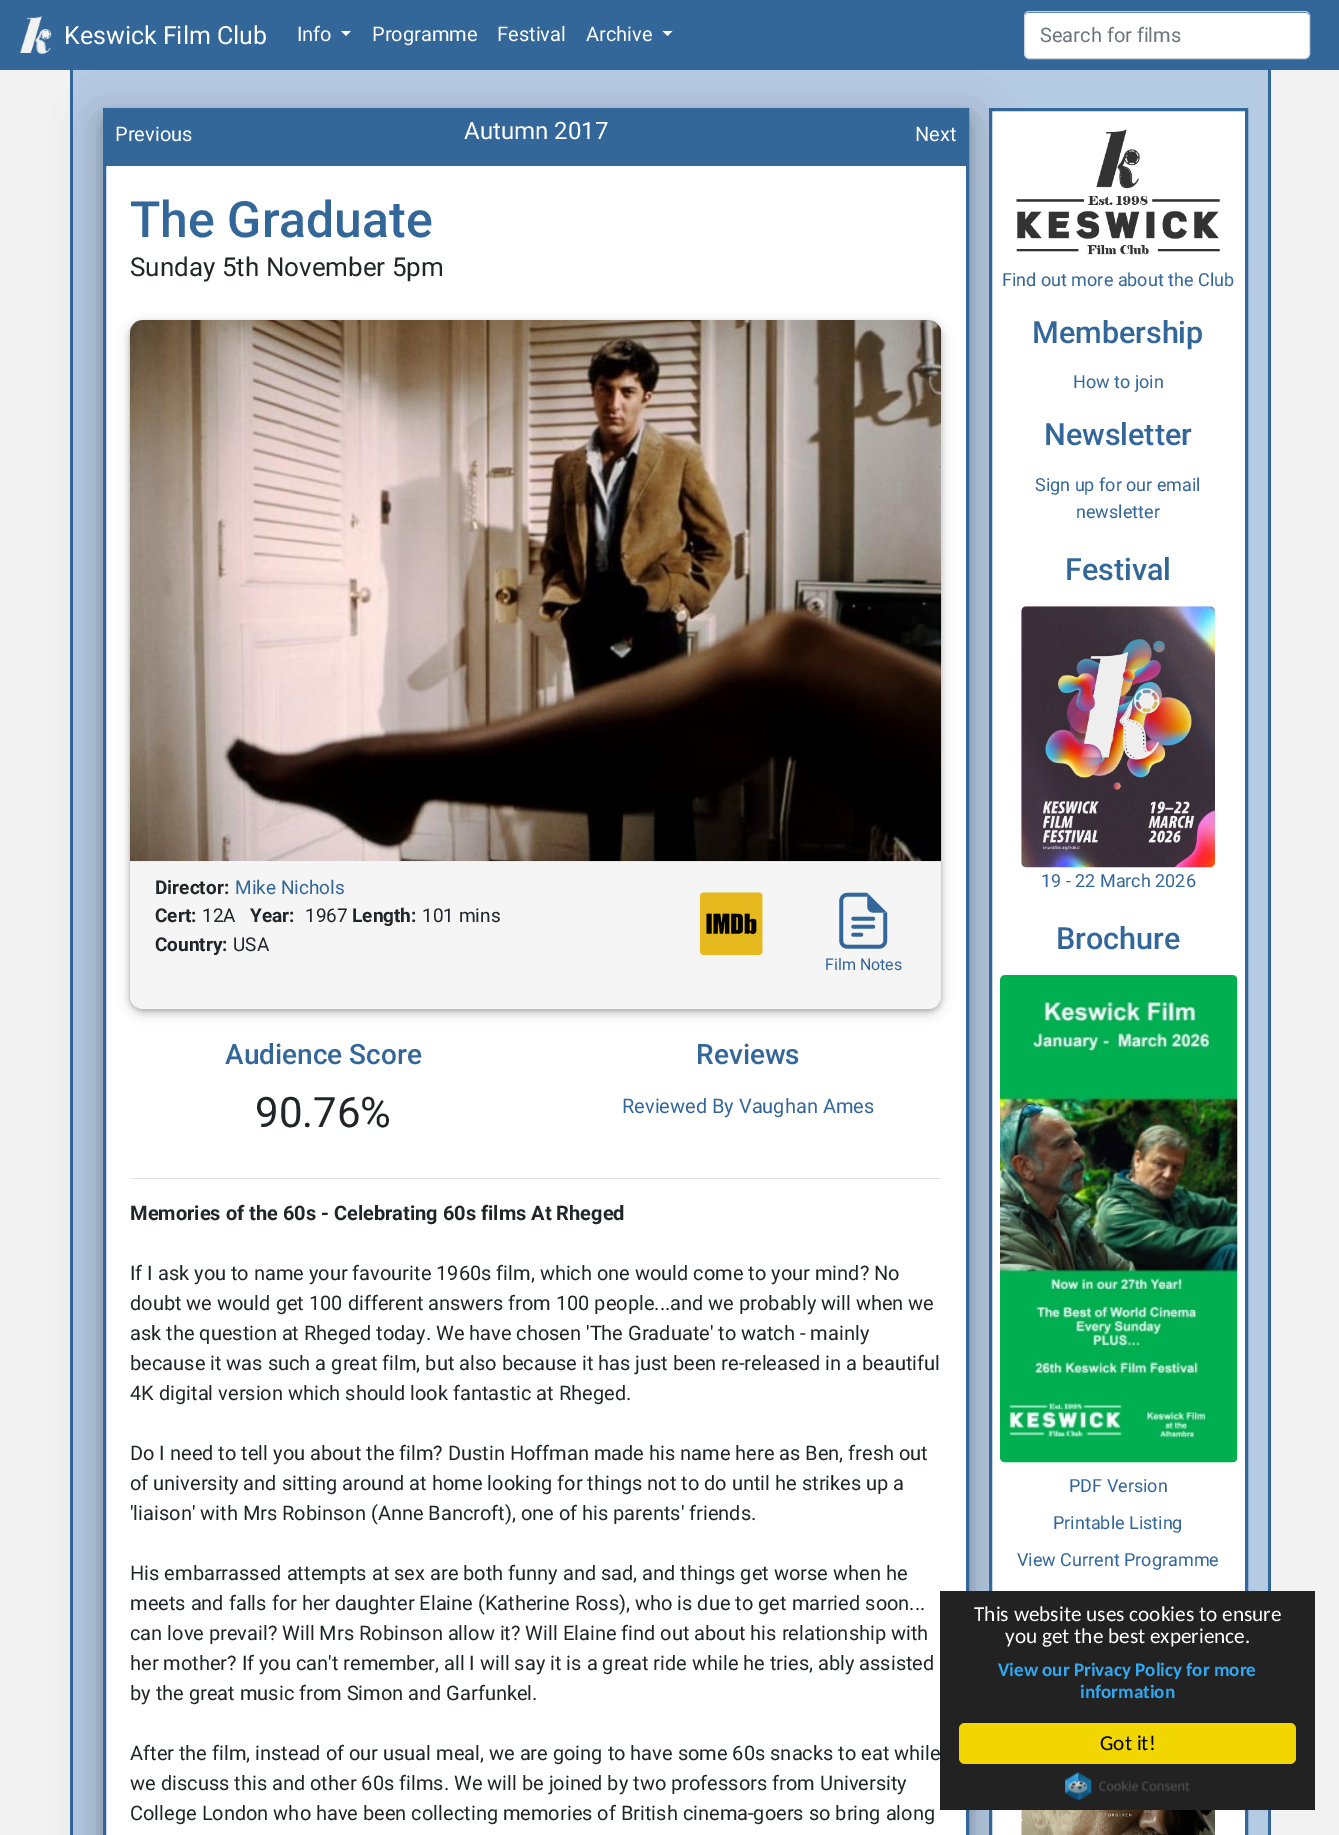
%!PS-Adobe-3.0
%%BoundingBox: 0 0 1339 1835
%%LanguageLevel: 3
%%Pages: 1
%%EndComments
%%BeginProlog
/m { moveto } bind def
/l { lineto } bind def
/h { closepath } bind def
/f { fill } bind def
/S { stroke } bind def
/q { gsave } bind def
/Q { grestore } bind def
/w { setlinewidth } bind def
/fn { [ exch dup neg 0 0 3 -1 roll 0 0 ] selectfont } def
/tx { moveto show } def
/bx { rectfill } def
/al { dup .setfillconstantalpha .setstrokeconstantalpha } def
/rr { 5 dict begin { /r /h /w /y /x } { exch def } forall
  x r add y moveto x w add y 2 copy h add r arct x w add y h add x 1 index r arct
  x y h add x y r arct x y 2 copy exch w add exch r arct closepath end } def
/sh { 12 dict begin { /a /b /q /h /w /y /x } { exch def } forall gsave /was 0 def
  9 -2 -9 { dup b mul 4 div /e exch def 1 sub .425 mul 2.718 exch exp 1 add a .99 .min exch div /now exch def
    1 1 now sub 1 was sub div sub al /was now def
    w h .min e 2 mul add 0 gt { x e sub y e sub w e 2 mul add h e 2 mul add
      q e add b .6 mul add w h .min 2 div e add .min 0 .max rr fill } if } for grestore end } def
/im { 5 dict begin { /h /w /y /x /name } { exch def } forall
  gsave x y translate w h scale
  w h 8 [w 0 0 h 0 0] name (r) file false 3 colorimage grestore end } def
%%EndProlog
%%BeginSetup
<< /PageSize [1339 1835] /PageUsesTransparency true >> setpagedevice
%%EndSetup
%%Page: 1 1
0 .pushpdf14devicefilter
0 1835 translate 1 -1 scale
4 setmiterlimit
0.949 setgray
0 0 1339 1835 bx
0.71 0.792 0.89 setrgbcolor
73 70 1195 1765 bx
0.2 0.4 0.6 setrgbcolor
70 70 3 1765 bx
0 setgray
103 123 866 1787 0 25 0.19 sh
0.2 0.4 0.6 setrgbcolor
0 0 1339 70 bx
(image0.raw) 20 16 32 38 im
/Roboto-Regular 25 fn
1 setgray
(Keswick Film Club) 64 44 tx
/Roboto-Regular 20 fn
(Info) 297 41 tx
341 31 m 351 31 l 346 36 l h f
(Programme) 372 41 tx
(Festival) 497 41 tx
(Archive) 586 41 tx
662.5 31 m 672.5 31 l 667.5 36 l h f
1025 13 284 45 4 rr f
0.808 0.831 0.855 setrgbcolor
1024.5 11.5 285 47 4.5 rr S
0.424 0.459 0.49 setrgbcolor
(Search for films) 1040 42 tx
0.2 0.4 0.6 setrgbcolor
1268 70 3 1765 bx
0 setgray
103 118 866 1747 0 10 0.2 sh
1 setgray
106 166 860 1669 bx
0.2 0.4 0.6 setrgbcolor
3 w
104.5 109.5 863 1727 rectstroke
106 111 860 55 bx
1 setgray
(Previous) 115 141 tx
/Roboto-Regular 24 fn
(Autumn 2017) 464 139 tx
/Roboto-Regular 20 fn
(Next) 915 141 tx
/Roboto-Medium 50 fn
0.2 0.4 0.6 setrgbcolor
(The Graduate) 130 237 tx
/Roboto-Regular 26 fn
0.129 0.145 0.161 setrgbcolor
(Sunday 5th November 5pm) 130 276 tx
0 setgray
130 324 811 689 13 6 0.19 sh
130 323 811 688 13 2.5 0.2 sh
0.961 setgray
130 320 811 689 13 rr f
(image1.raw) 130 320 812 542 im
/Roboto-Bold 19 fn
0.129 0.145 0.161 setrgbcolor
(Director:) 155 894 tx
/Roboto-Regular 19 fn
0.2 0.4 0.6 setrgbcolor
(Mike Nichols) 235 894 tx
/Roboto-Bold 19 fn
0.129 0.145 0.161 setrgbcolor
(Cert:) 155 922 tx
/Roboto-Regular 19 fn
(12A) 202 922 tx
/Roboto-Bold 19 fn
(Year:) 250 922 tx
/Roboto-Regular 19 fn
(1967) 305 922 tx
/Roboto-Bold 19 fn
(Length:) 352 922 tx
/Roboto-Regular 19 fn
(101 mins) 422 922 tx
/Roboto-Bold 19 fn
(Country:) 155 951 tx
/Roboto-Regular 19 fn
(USA) 233 951 tx
(image2.raw) 700 892 63 63 im
(image3.raw) 839 892 49 57 im
/Roboto-Regular 16 fn
0.2 0.4 0.6 setrgbcolor
(Film Notes) 825 970 tx
0.871 0.886 0.902 setrgbcolor
130 1178 811 1 bx
/Roboto-Medium 28 fn
0.2 0.4 0.6 setrgbcolor
(Audience Score) 225 1064 tx
/Roboto-Regular 42 fn
0.129 0.145 0.161 setrgbcolor
(90.76%) 255 1127 tx
/Roboto-Medium 28 fn
0.2 0.4 0.6 setrgbcolor
(Reviews) 696 1064 tx
/Roboto-Regular 20 fn
(Reviewed By Vaughan Ames) 622 1113 tx
/Roboto-Bold 20 fn
0.129 0.145 0.161 setrgbcolor
(Memories of the 60s - Celebrating 60s films At Rheged) 130 1220 tx
/Roboto-Regular 20 fn
(If I ask you to name your favourite 1960s film, which one would come to your mind? No) 130 1280 tx
(doubt we would get 100 different answers from 100 people...and we probably will when we) 130 1310 tx
(ask the question at Rheged today. We have chosen 'The Graduate' to watch - mainly) 130 1340 tx
(because it was such a great film, but also because it has just been re-released in a beautiful) 130 1370 tx
(4K digital version which should look fantastic at Rheged.) 130 1400 tx
(Do I need to tell you about the film? Dustin Hoffman made his name here as Ben, fresh out) 130 1460 tx
(of university and sitting around at home looking for things not to do until he strikes up a) 130 1490 tx
('liaison' with Mrs Robinson \(Anne Bancroft\), one of his parents' friends.) 130 1520 tx
(His embarrassed attempts at sex are both funny and sad, and things get worse when he) 130 1580 tx
(meets and falls for her daughter Elaine \(Katherine Ross\), who is due to get married soon...) 130 1610 tx
(can love prevail? Will Mrs Robinson allow it? Will Elaine find out about his relationship with) 130 1640 tx
(her mother? If you can't remember, all I will say it is a great ride while he tries, ably assisted) 130 1670 tx
(by the great music from Simon and Garfunkel.) 130 1700 tx
(After the film, instead of our usual meal, we are going to have some 60s snacks to eat while) 130 1760 tx
(we discuss this and other 60s films. We will be joined by two professors from University) 130 1790 tx
(College London who have been collecting memories of British cinema-goers so bring along) 130 1820 tx
1 setgray
990.5 109.5 m 1246.5 109.5 l 1246.5 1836.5 l 990.5 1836.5 l h q f Q
0.2 0.4 0.6 setrgbcolor
S
(image4.raw) 1016 129 204 126 im
/Roboto-Regular 18 fn
(Find out more about the Club) 1002 286 tx
/Roboto-Medium 30.5 fn
(Membership) 1032 343 tx
/Roboto-Regular 18 fn
(How to join) 1073 388 tx
/Roboto-Medium 30.5 fn
(Newsletter) 1044 445 tx
/Roboto-Regular 18 fn
(Sign up for our email) 1035 491 tx
(newsletter) 1076 518 tx
/Roboto-Medium 30.5 fn
(Festival) 1065 580 tx
(image5.raw) 1021 606 194 262 im
/Roboto-Regular 18 fn
(19 - 22 March 2026) 1041 887 tx
/Roboto-Medium 30.5 fn
(Brochure) 1056 949 tx
(image6.raw) 1000 975 238 488 im
/Roboto-Regular 18 fn
(PDF Version) 1069 1492 tx
(Printable Listing) 1053 1529 tx
(View Current Programme) 1017 1566 tx
(image7.raw) 1021 1810 194 25 im
0.133 setgray
940 1591 375 219 bx
/Carlito-Regular 21.25 fn
1 setgray
(This website uses cookies to ensure) 974 1621 tx
(you get the best experience.) 1005 1643 tx
/Carlito-Bold 19.1 fn
0.192 0.659 0.941 setrgbcolor
(View our Privacy Policy for more) 998 1676 tx
(information) 1080 1698 tx
0.945 0.839 0 setrgbcolor
959 1723 337 41 6 rr f
/Carlito-Regular 21.25 fn
0 setgray
(Got it!) 1100 1750 tx
(image8.raw) 1065 1772 125 29 im
.poppdf14devicefilter showpage
%%EOF
